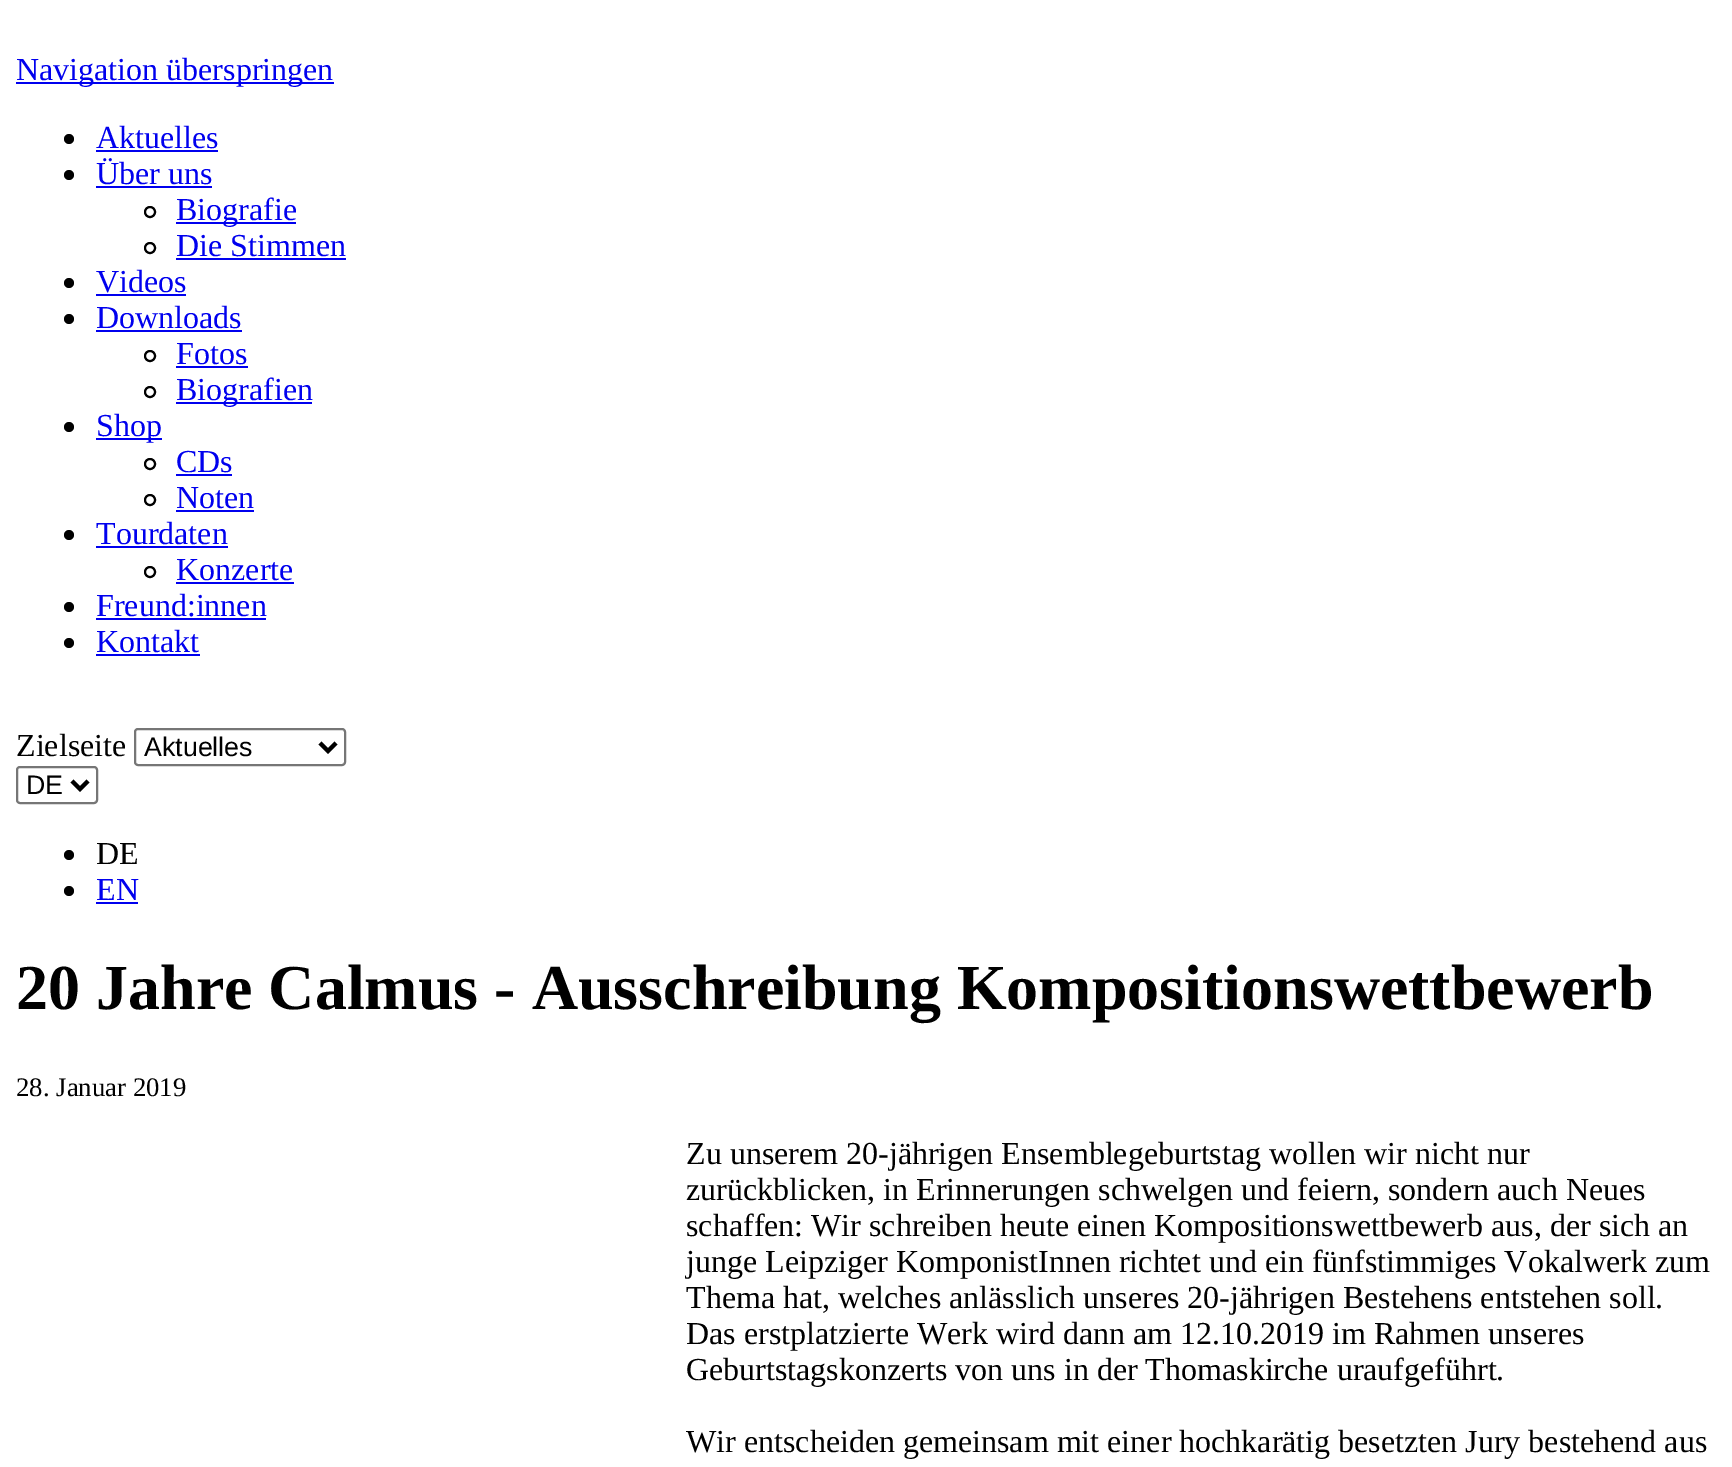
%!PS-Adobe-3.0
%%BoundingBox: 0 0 1732 1467
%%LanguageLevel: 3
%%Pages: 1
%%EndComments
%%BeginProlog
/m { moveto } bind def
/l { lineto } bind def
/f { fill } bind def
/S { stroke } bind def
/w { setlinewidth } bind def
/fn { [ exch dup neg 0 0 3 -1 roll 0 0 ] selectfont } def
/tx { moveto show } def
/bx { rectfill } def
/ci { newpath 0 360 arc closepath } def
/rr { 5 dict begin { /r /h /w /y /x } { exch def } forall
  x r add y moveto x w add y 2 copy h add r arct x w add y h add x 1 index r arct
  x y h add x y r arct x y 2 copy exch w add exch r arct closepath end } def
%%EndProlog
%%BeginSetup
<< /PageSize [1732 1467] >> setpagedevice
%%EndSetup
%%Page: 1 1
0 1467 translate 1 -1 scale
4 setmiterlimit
1 setgray
0 0 1732 1467 bx
0 0 0.933 setrgbcolor
16 82 318 2 bx
/LiberationSerif-Regular 32 fn
(Navigation überspringen) 16 80 tx
0 setgray
69 139 5 ci f
0 0 0.933 setrgbcolor
(Aktuelles) 96 148 tx
96 150 122 2 bx
0 setgray
69 175 5 ci f
0 0 0.933 setrgbcolor
(Über uns) 96 184 tx
96 186 116 2 bx
0 setgray
2 w
150 212 5 ci S
0 0 0.933 setrgbcolor
176 222 120 2 bx
(Biografie) 176 220 tx
0 setgray
150 248 5 ci S
0 0 0.933 setrgbcolor
(Die Stimmen) 176 256 tx
176 258 170 2 bx
0 setgray
69 283 5 ci f
0 0 0.933 setrgbcolor
(Videos) 96 292 tx
96 294 90 2 bx
0 setgray
69 319 5 ci f
0 0 0.933 setrgbcolor
(Downloads) 96 328 tx
96 330 146 2 bx
0 setgray
150 356 5 ci S
0 0 0.933 setrgbcolor
(Fotos) 176 364 tx
176 366 72 2 bx
0 setgray
150 392 5 ci S
0 0 0.933 setrgbcolor
176 402 136 2 bx
(Biografien) 176 400 tx
0 setgray
69 427 5 ci f
0 0 0.933 setrgbcolor
96 438 66 2 bx
(Shop) 96 436 tx
0 setgray
150 464 5 ci S
0 0 0.933 setrgbcolor
(CDs) 176 472 tx
176 474 56 2 bx
0 setgray
150 500 5 ci S
0 0 0.933 setrgbcolor
(Noten) 176 508 tx
176 510 78 2 bx
0 setgray
69 535 5 ci f
0 0 0.933 setrgbcolor
(Tourdaten) 96 544 tx
96 546 132 2 bx
0 setgray
150 572 5 ci S
0 0 0.933 setrgbcolor
(Konzerte) 176 580 tx
176 582 118 2 bx
0 setgray
69 607 5 ci f
0 0 0.933 setrgbcolor
(Freund:innen) 96 616 tx
96 618 170 2 bx
0 setgray
69 643 5 ci f
0 0 0.933 setrgbcolor
(Kontakt) 96 652 tx
96 654 104 2 bx
0 setgray
(Zielseite) 16 756 tx
0.463 setgray
135 729 210 36 3 rr S
0 setgray
4 w
320 743 m 328 751 l 336 743 l S
/LiberationSans-Regular 26.75 fn
(Aktuelles) 144 756 tx
0.463 setgray
2 w
17 767 80 36 3 rr S
0 setgray
4 w
72 781 m 80 789 l 88 781 l S
(DE) 26 794 tx
69 855 5 ci f
/LiberationSerif-Regular 32 fn
(DE) 96 864 tx
69 891 5 ci f
0 0 0.933 setrgbcolor
(EN) 96 900 tx
96 902 42 2 bx
/LiberationSerif-Bold 64 fn
0 setgray
(20 Jahre Calmus - Ausschreibung Kompositionswettbewerb) 16 1009 tx
/LiberationSerif-Regular 26.75 fn
(28. Januar 2019) 16 1096 tx
/LiberationSerif-Regular 32 fn
(Zu unserem 20-jährigen Ensemblegeburtstag wollen wir nicht nur) 686 1164 tx
(zurückblicken, in Erinnerungen schwelgen und feiern, sondern auch Neues) 686 1200 tx
(schaffen: Wir schreiben heute einen Kompositionswettbewerb aus, der sich an) 686 1236 tx
(junge Leipziger KomponistInnen richtet und ein fünfstimmiges Vokalwerk zum) 686 1272 tx
(Thema hat, welches anlässlich unseres 20-jährigen Bestehens entstehen soll.) 686 1308 tx
(Das erstplatzierte Werk wird dann am 12.10.2019 im Rahmen unseres) 686 1344 tx
(Geburtstagskonzerts von uns in der Thomaskirche uraufgeführt.) 686 1380 tx
(Wir entscheiden gemeinsam mit einer hochkarätig besetzten Jury bestehend aus) 686 1452 tx
showpage
%%EOF
